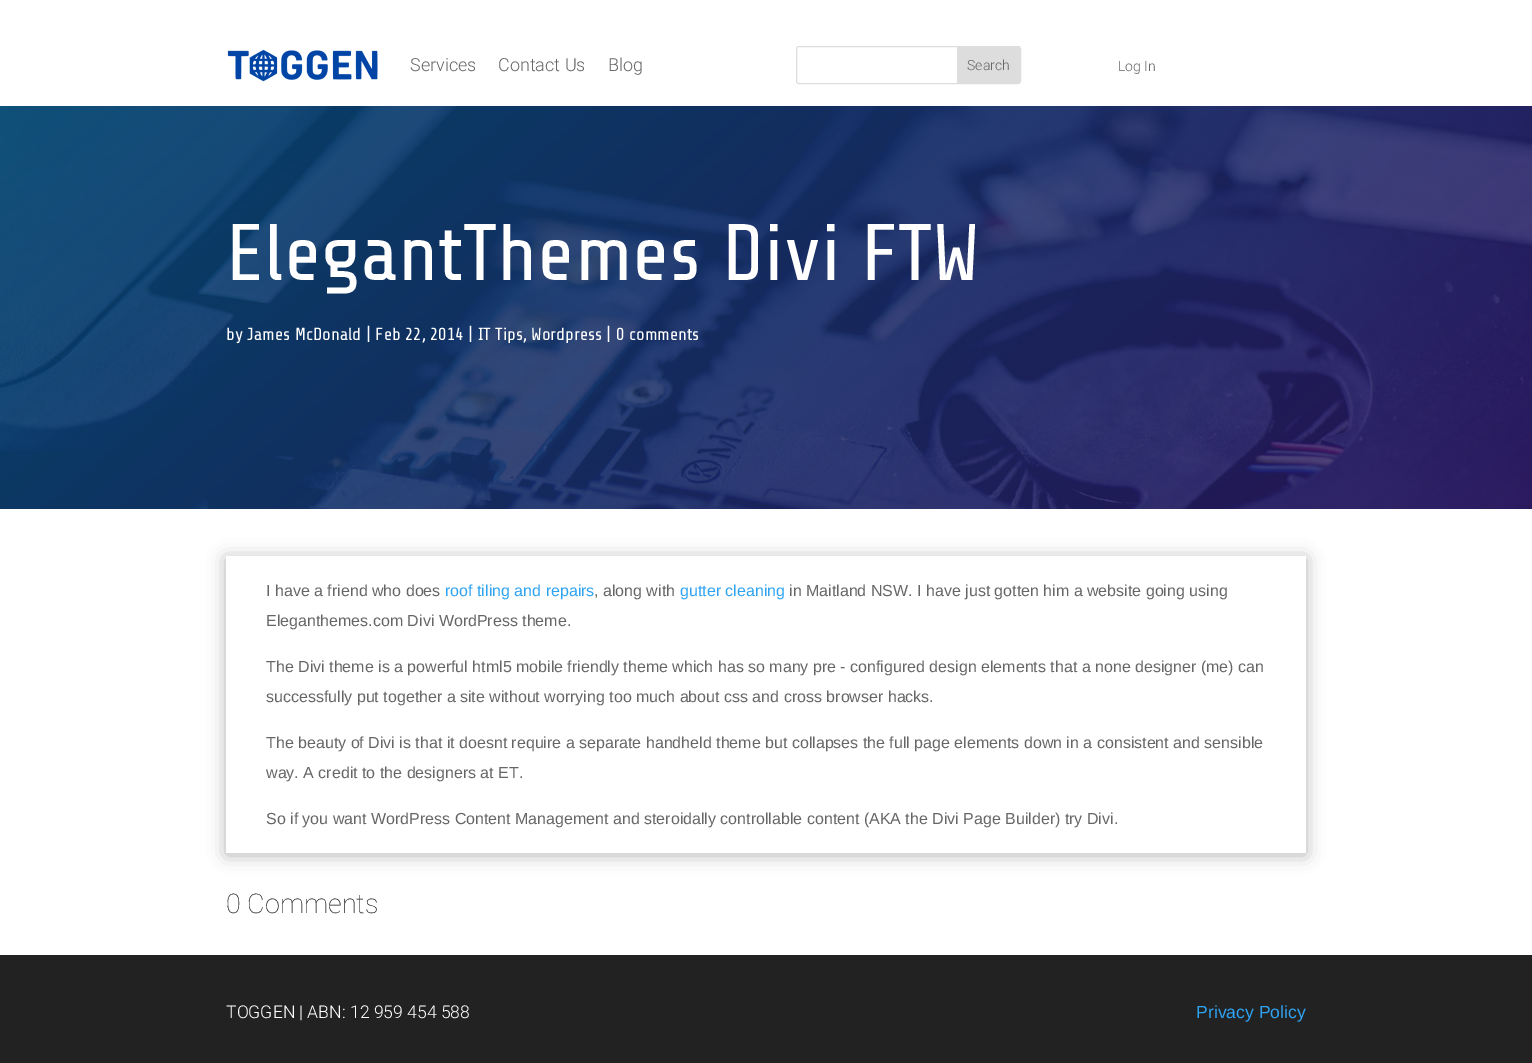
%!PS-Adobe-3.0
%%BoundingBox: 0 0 1532 1063
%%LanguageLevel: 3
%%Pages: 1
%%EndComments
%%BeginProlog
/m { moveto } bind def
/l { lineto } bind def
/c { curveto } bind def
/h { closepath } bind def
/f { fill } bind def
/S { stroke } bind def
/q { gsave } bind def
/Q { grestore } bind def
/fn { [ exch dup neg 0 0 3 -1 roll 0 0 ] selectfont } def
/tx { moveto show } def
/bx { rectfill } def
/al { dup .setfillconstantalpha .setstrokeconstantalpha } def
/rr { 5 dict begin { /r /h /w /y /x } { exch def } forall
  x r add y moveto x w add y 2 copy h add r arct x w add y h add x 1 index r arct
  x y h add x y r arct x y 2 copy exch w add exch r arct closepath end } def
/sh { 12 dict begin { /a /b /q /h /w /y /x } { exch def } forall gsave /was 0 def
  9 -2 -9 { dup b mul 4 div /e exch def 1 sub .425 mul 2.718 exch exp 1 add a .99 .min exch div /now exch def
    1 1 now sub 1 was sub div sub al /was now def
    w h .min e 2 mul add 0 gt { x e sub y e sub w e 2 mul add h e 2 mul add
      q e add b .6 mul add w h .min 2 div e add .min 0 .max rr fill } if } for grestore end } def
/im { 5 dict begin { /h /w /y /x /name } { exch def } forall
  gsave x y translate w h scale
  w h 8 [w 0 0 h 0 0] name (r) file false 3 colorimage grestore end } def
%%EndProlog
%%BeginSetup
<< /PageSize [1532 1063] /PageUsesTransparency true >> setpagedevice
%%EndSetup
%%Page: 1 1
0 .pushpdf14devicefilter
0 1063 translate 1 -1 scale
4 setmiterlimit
1 setgray
0 0 1532 1063 bx
(image0.raw) 227 49 151 33 im
/Roboto-Light 18 fn
0.4 setgray
(Services) 410 71 tx
(Contact Us) 498 71 tx
(Blog) 608 71 tx
0.867 setgray
796.5 46.5 224 37 2.5 rr S
957 47 m 1018 47 l 1019 47 1020 48 1020 49 c 1020 81 l 1020 82 1019 83 1018 83 c 957 83 l h f
/Roboto-Light 14 fn
0.4 setgray
(Search) 967 70 tx
(Log In) 1118 71 tx
(image1.raw) 0 106 1532 403 im
/ShareTech-Regular 80 fn
1 setgray
(ElegantThemes Divi FTW) 226 280 tx
/ShareTech-Regular 17.6 fn
(by James McDonald | Feb 22, 2014 | IT Tips, Wordpress | 0 comments) 226 340 tx
q
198 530 m 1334 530 l 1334 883 l 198 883 l h 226 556 m 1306 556 l 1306 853 l 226 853 l h eoclip newpath
0 setgray
226 558 1080 297 0 9 0.3 sh
Q
/LiberationSans-Regular 16 fn
0.4 setgray
(I have a friend who does) 266 596 tx
0.18 0.639 0.949 setrgbcolor
(roof tiling and repairs) 445 596 tx
0.4 setgray
(, along with) 594 596 tx
0.18 0.639 0.949 setrgbcolor
(gutter cleaning) 680 596 tx
0.4 setgray
(in Maitland NSW. I have just gotten him a website going using) 789 596 tx
(Eleganthemes.com Divi WordPress theme.) 266 626 tx
(The Divi theme is a powerful html5 mobile friendly theme which has so many pre - configured design elements that a none designer \(me\) can) 266 672 tx
(successfully put together a site without worrying too much about css and cross browser hacks.) 266 702 tx
(The beauty of Divi is that it doesnt require a separate handheld theme but collapses the full page elements down in a consistent and sensible) 266 748 tx
(way. A credit to the designers at ET.) 266 778 tx
(So if you want WordPress Content Management and steroidally controllable content \(AKA the Divi Page Builder\) try Divi.) 266 824 tx
/Roboto-Thin 27 fn
0.133 setgray
(0 Comments) 226 913 tx
0 955 1532 108 bx
/Roboto-Light 17.6 fn
1 setgray
(TOGGEN | ABN: 12 959 454 588) 226 1018 tx
/LiberationSans-Regular 17.6 fn
0.18 0.639 0.949 setrgbcolor
(Privacy Policy) 1196 1018 tx
.poppdf14devicefilter showpage
%%EOF
